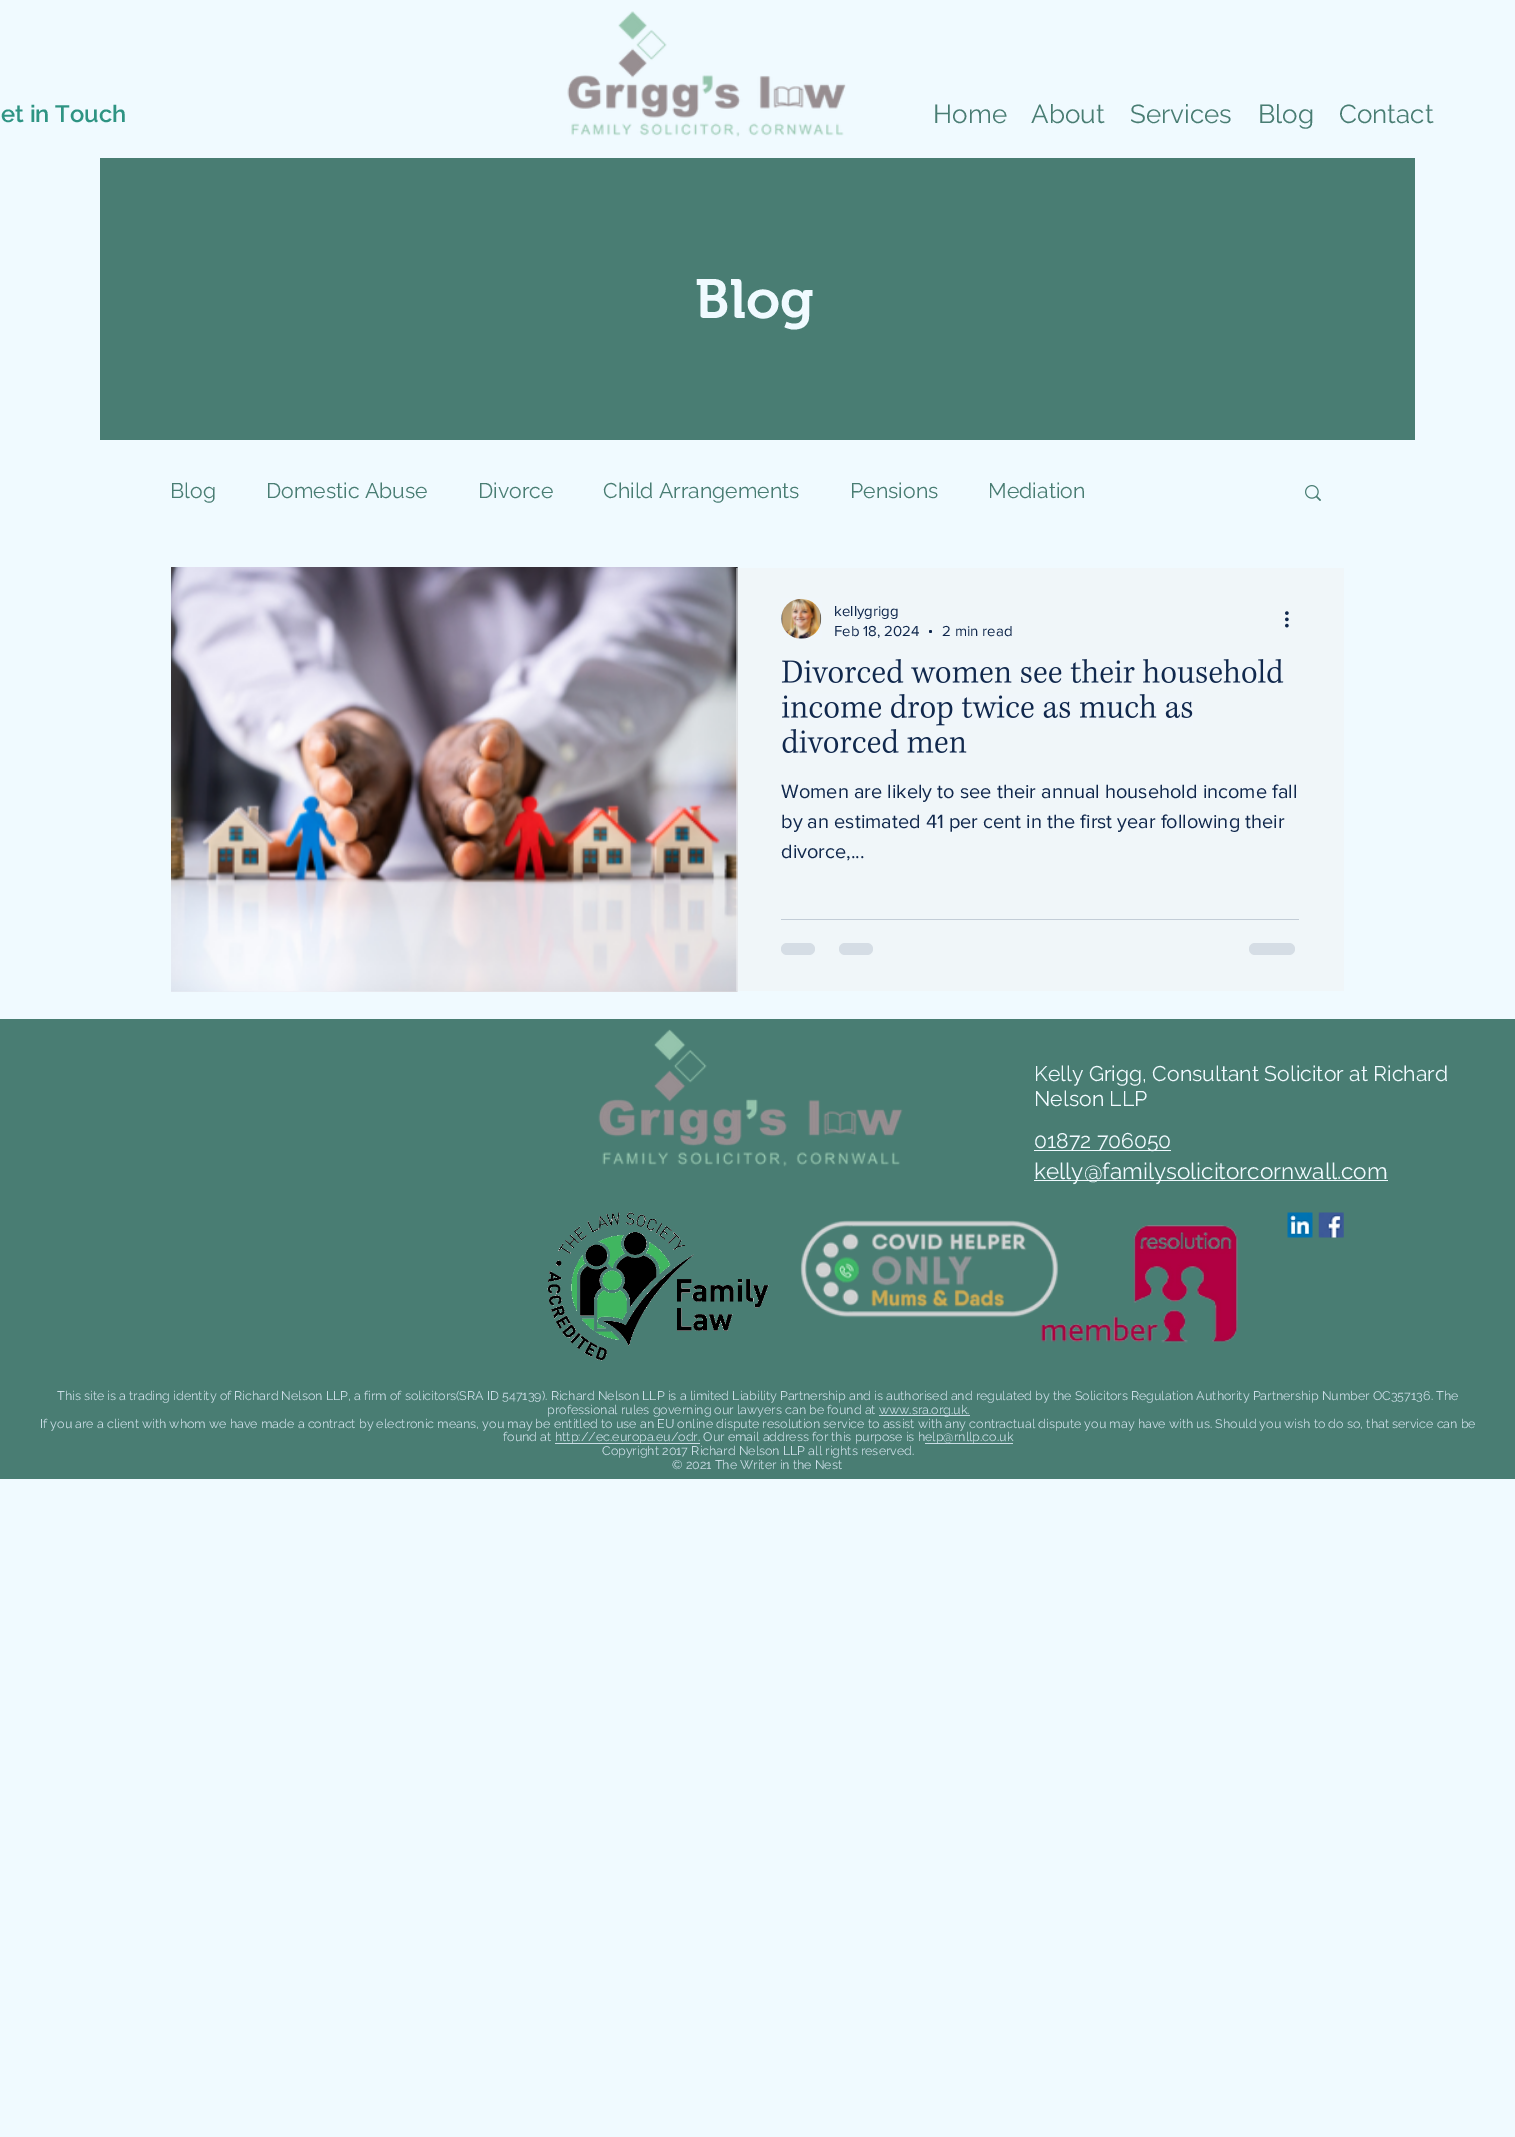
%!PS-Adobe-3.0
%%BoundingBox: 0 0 1515 2137
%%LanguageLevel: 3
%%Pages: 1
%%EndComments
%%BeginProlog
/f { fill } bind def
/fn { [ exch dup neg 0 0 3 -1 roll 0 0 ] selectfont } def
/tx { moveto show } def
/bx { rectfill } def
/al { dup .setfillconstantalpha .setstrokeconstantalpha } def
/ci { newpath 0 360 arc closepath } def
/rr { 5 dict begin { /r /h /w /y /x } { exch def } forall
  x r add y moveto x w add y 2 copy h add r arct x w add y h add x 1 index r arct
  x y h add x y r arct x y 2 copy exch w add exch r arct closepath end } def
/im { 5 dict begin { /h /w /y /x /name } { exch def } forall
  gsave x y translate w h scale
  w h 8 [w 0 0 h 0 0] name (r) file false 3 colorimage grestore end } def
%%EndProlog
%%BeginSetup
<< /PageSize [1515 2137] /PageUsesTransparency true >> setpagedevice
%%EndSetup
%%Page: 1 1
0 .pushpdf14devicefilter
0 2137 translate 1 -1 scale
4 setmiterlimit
0.941 0.98 1 setrgbcolor
0 0 1515 2137 bx
/Raleway-SemiBold 23.75 fn
0.18 0.58 0.514 setrgbcolor
(et in Touch) 1 122 tx
(image0.raw) 567 11 279 126 im
/Raleway-Regular 26 fn
0.286 0.49 0.451 setrgbcolor
(Home) 933 123 tx
(About) 1031 123 tx
(Services) 1130 123 tx
(Blog) 1258 123 tx
(Contact) 1339 123 tx
100 158 1315 282 bx
/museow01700-SemiBold 55 fn
0.941 0.98 1 setrgbcolor
(Blog) 695 318 tx
/Raleway-Regular 21.25 fn
0.286 0.49 0.451 setrgbcolor
(Blog) 170 498 tx
(Domestic Abuse) 266 498 tx
(Divorce) 478 498 tx
(Child Arrangements) 603 498 tx
(Pensions) 850 498 tx
(Mediation) 988 498 tx
(image1.raw) 1305 485 16 16 im
(image2.raw) 171 567 567 425 im
(image3.raw) 171 567 567 424 im
0.5 al
0.941 0.949 0.957 setrgbcolor
736 568 608 423 bx
1 al
(image4.raw) 781 598 41 41 im
/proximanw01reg-Regular 15 fn
0.063 0.157 0.302 setrgbcolor
(kellygrigg) 834 616 tx
(Feb 18, 2024) 834 636 tx
930.5 631.5 1.5 ci f
(2 min read) 942 636 tx
(image5.raw) 1285 611 4 17 im
(image6.raw) 781 659 503 24 im
(image7.raw) 782 694 411 32 im
(image8.raw) 782 729 185 24 im
/proximanw01reg-Regular 20 fn
(Women are likely to see their annual household income fall) 781 798 tx
(by an estimated 41 per cent in the first year following their) 781 828 tx
(divorce,...) 781 858 tx
0.765 0.804 0.843 setrgbcolor
781 919 518 1 bx
0.835 0.867 0.898 setrgbcolor
781 943 34 12 6 rr f
839 943 34 12 6 rr f
1249 943 46 12 6 rr f
0.286 0.49 0.451 setrgbcolor
0 1019 1515 460 bx
(image9.raw) 598 1029 305 138 im
/Raleway-Regular 21.25 fn
0.941 0.98 1 setrgbcolor
(Kelly Grigg, Consultant Solicitor at Richard) 1034 1081 tx
(Nelson LLP) 1034 1106 tx
1034 1150 137 1 bx
(01872 706050) 1034 1148 tx
1034 1180 354 1 bx
/Raleway-Regular 22.5 fn
(kelly@familysolicitorcornwall.com) 1034 1179 tx
(image10.raw) 1041 1225 197 118 im
(image11.raw) 1287 1212 26 26 im
(image12.raw) 1318 1212 26 26 im
(image13.raw) 547 1212 222 149 im
(image14.raw) 800 1220 259 98 im
/Raleway-Regular 12.5 fn
0.792 0.867 0.902 setrgbcolor
(This site is a trading identity of Richard Nelson LLP, a firm of solicitors\(SRA ID 547139\). Richard Nelson LLP is a limited Liability Partnership and is authorised and regulated by the Solicitors Regulation Authority Partnership Number OC357136. The) 57 1400 tx
(professional rules governing our lawyers can be found at) 547 1414 tx
879 1415 91 1 bx
(www.sra.org.uk.) 879 1414 tx
(If you are a client with whom we have made a contract by electronic means, you may be entitled to use an EU online dispute resolution service to assist with any contractual dispute you may have with us. Should you wish to do so, that service can be) 40 1428 tx
(found at) 503 1441 tx
555 1443 145 1 bx
(http://ec.europa.eu/odr. Our email address for this purpose is h) 555 1441 tx
925 1443 88 1 bx
(elp@rnllp.co.uk) 925 1441 tx
(Copyright 2017 Richard Nelson LLP all rights reserved.) 602 1455 tx
(© 2021 The Writer in the Nest) 672 1469 tx
.poppdf14devicefilter showpage
%%EOF
